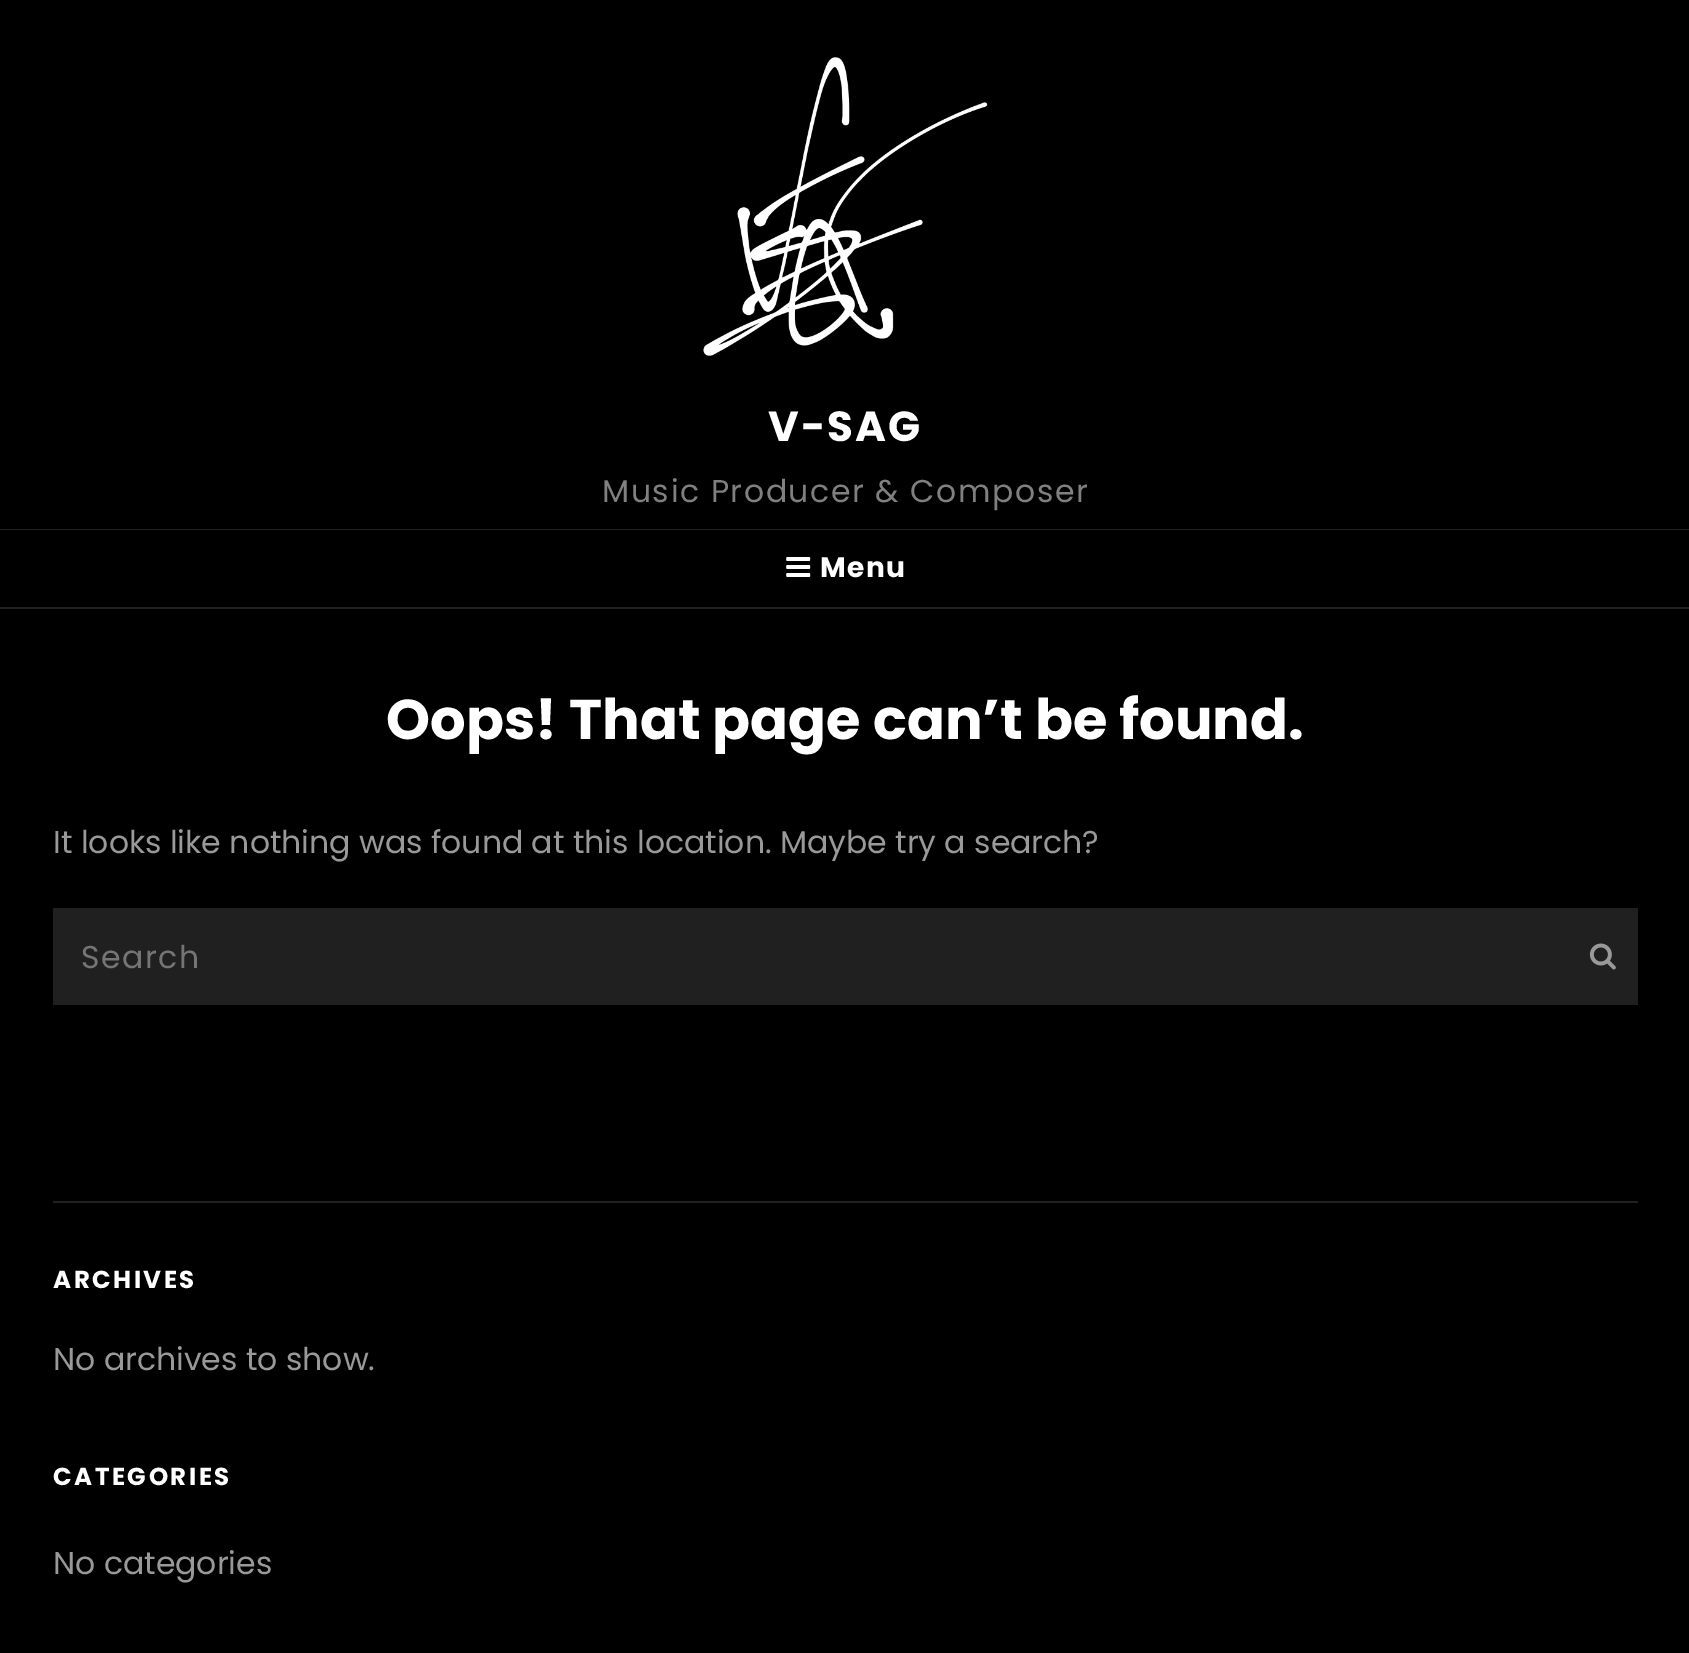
%!PS-Adobe-3.0
%%BoundingBox: 0 0 1689 1653
%%LanguageLevel: 3
%%Pages: 1
%%EndComments
%%BeginProlog
/m { moveto } bind def
/fn { [ exch dup neg 0 0 3 -1 roll 0 0 ] selectfont } def
/tx { moveto show } def
/bx { rectfill } def
/im { 5 dict begin { /h /w /y /x /name } { exch def } forall
  gsave x y translate w h scale
  w h 8 [w 0 0 h 0 0] name (r) file false 3 colorimage grestore end } def
%%EndProlog
%%BeginSetup
<< /PageSize [1689 1653] >> setpagedevice
%%EndSetup
%%Page: 1 1
0 1653 translate 1 -1 scale
4 setmiterlimit
0 setgray
0 0 1689 1653 bx
(image0.raw) 703 57 285 299 im
/Poppins-Bold 42 fn
1 setgray
768 441 m 2 0 (V-SAG) ashow
/Poppins-Regular 31.5 fn
0.502 setgray
602 502 m 1.6 0 (Music Producer & Composer) ashow
0.125 setgray
0 529 1689 1 bx
0 607 1689 2 bx
(image1.raw) 786 557 25 20 im
/Poppins-Bold 28 fn
1 setgray
820 577 m 1.5 0 (Menu) ashow
/Poppins-Bold 56 fn
(Oops! That page can’t be found.) 386 739 tx
/Poppins-Regular 31.5 fn
0.6 setgray
(It looks like nothing was found at this location. Maybe try a search?) 53 853 tx
0.125 setgray
53 908 1585 97 bx
0.459 setgray
81 968 m 1.6 0 (Search) ashow
(image2.raw) 1589 943 27 27 im
0.125 setgray
53 1201 1585 2 bx
/Poppins-Bold 24.5 fn
1 setgray
53 1288 m 2.5 0 (ARCHIVES) ashow
/Poppins-Regular 31.5 fn
0.6 setgray
(No archives to show.) 53 1370 tx
/Poppins-Bold 24.5 fn
1 setgray
53 1485 m 2.5 0 (CATEGORIES) ashow
/Poppins-Regular 31.5 fn
0.6 setgray
(No categories) 53 1574 tx
showpage
%%EOF
